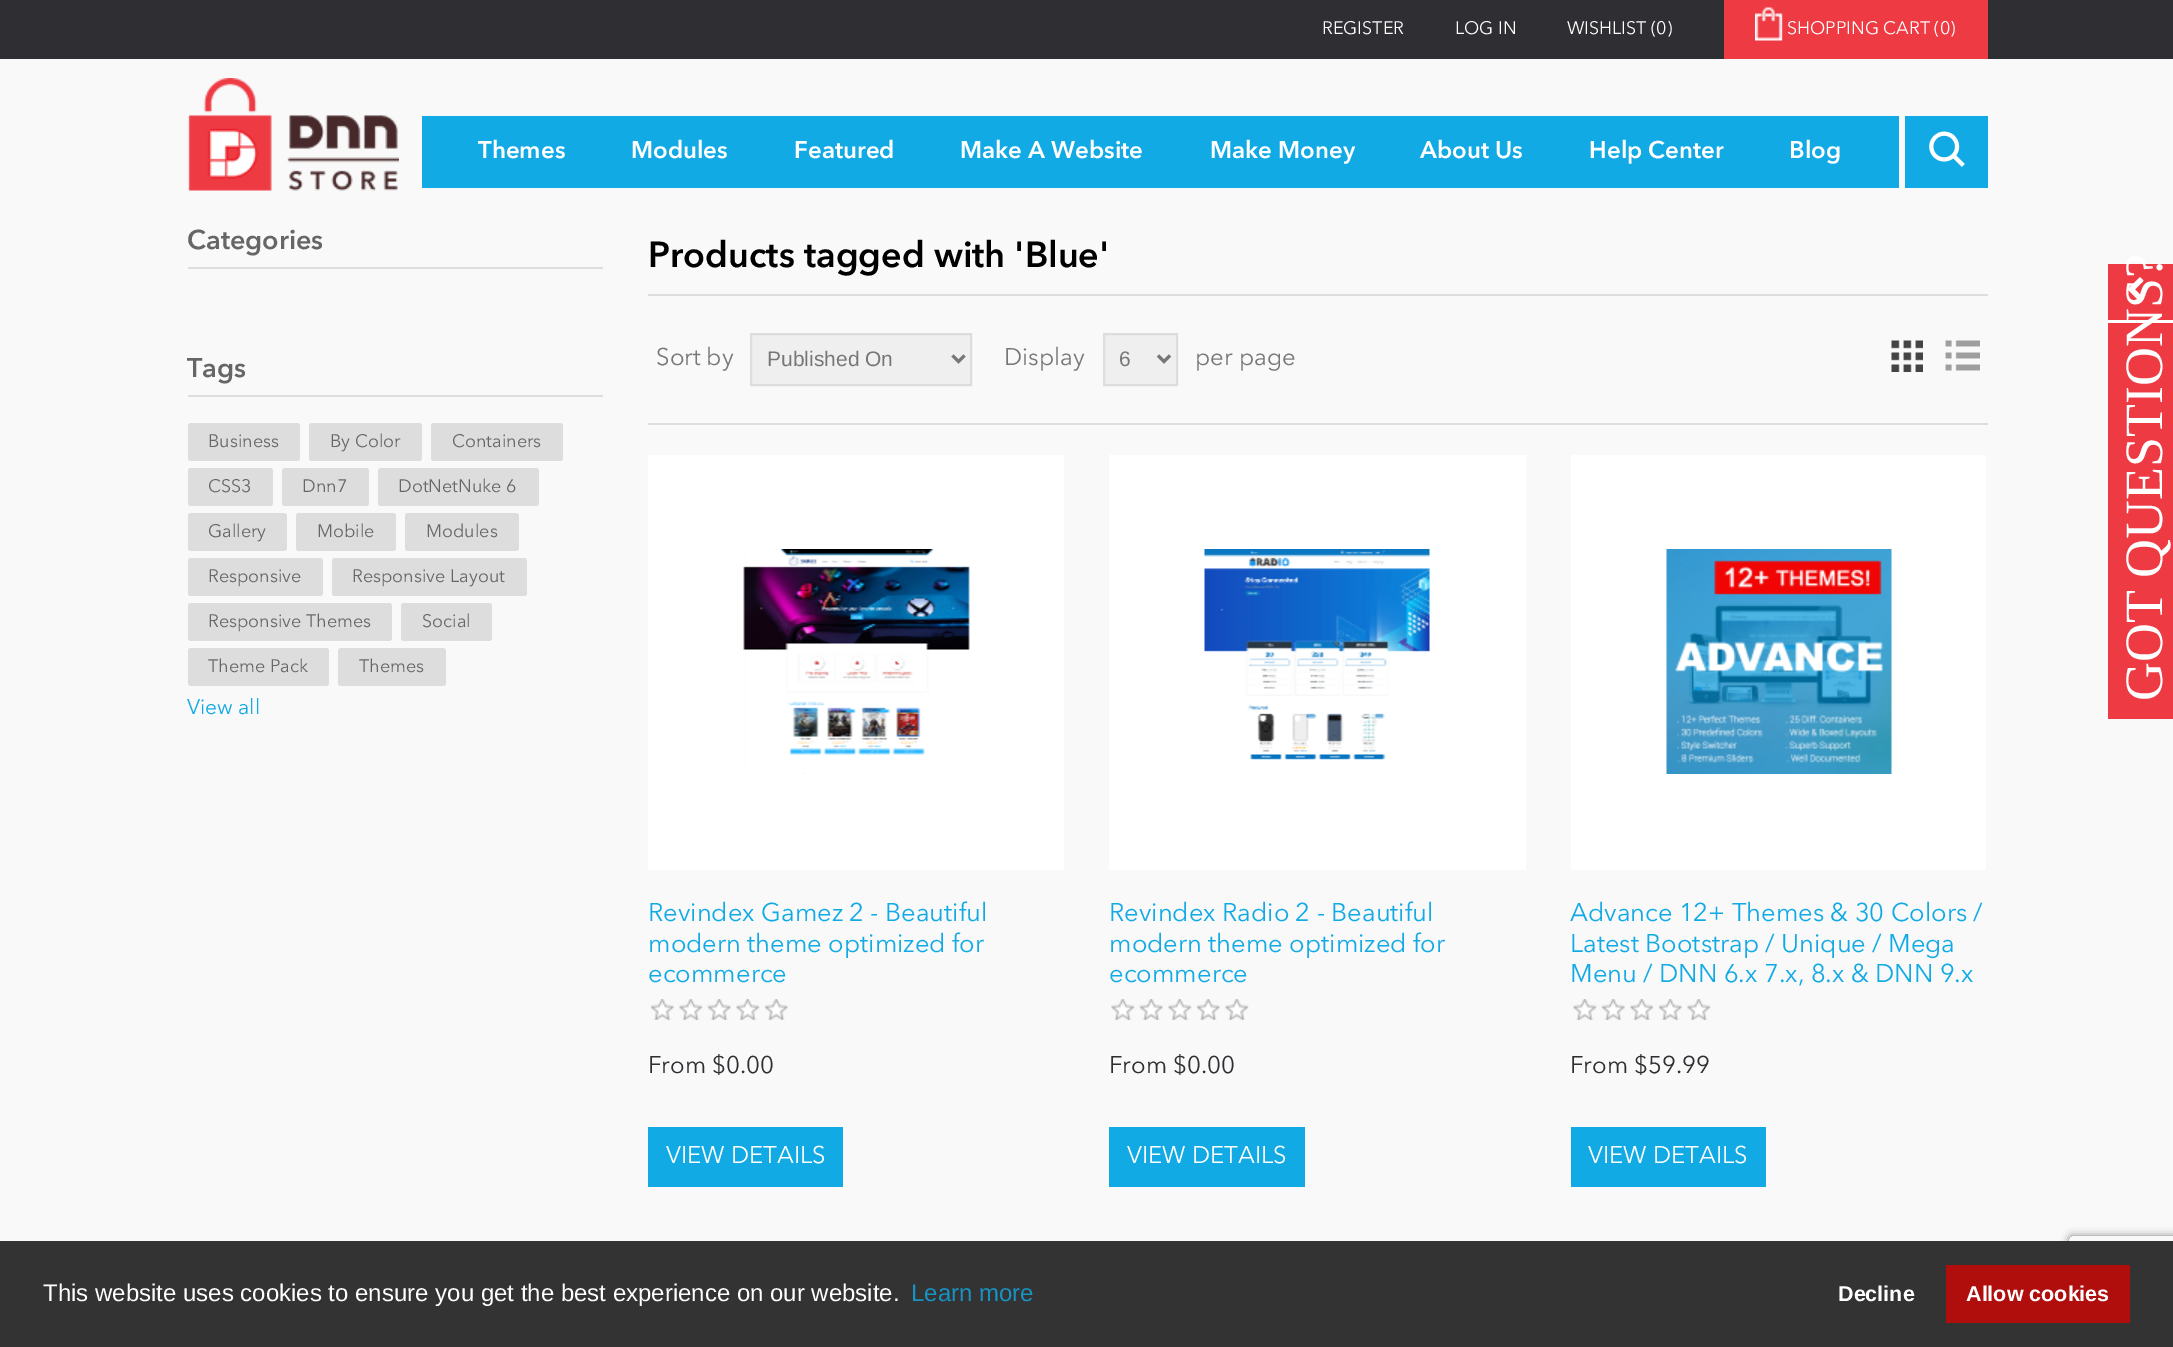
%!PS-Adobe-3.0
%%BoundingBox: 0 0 2173 1347
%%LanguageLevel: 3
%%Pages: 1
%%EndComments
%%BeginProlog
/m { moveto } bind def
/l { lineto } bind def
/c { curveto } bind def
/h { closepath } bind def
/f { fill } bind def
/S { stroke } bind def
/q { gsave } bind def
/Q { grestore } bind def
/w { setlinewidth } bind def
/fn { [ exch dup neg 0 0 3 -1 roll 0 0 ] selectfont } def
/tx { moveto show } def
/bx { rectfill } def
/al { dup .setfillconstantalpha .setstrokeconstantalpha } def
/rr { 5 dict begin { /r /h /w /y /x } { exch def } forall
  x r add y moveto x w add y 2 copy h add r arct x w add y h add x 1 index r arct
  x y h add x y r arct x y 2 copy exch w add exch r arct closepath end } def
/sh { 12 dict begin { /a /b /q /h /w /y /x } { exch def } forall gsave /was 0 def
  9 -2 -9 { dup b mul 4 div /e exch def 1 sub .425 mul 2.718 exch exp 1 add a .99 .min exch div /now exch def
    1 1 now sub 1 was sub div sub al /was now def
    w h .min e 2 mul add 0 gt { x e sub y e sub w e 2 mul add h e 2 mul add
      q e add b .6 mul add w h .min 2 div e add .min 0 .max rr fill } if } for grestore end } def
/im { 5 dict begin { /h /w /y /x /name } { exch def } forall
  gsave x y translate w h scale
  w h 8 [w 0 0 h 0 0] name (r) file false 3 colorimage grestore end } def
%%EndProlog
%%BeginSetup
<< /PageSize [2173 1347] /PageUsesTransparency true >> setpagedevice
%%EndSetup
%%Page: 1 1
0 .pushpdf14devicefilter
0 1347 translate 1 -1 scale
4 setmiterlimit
0.976 setgray
0 0 2173 1347 bx
0.184 0.184 0.2 setrgbcolor
0 0 2173 59 bx
/AvenirNext-Regular 18 fn
1 setgray
(REGISTER) 1322 34 tx
(LOG IN) 1455 34 tx
(WISHLIST \(0\)) 1567 34 tx
0.933 0.227 0.263 setrgbcolor
1724 0 264 59 bx
(image0.raw) 1755 7 28 34 im
1 setgray
(SHOPPING CART \(0\)) 1787 34 tx
(image1.raw) 188 78 211 113 im
0.067 0.667 0.898 setrgbcolor
422 116 1477 72 bx
/AvenirNext-SemiBold 24 fn
1 setgray
(Themes) 478 158 tx
(Modules) 631 158 tx
(Featured) 794 158 tx
(Make A Website) 960 158 tx
(Make Money) 1210 158 tx
(About Us) 1420 158 tx
(Help Center) 1589 158 tx
(Blog) 1789 158 tx
0.067 0.667 0.898 setrgbcolor
1905 116 83 72 bx
(image2.raw) 1929 131 36 36 im
0.867 setgray
188 267 415 2 bx
/AvenirNext-SemiBold 27 fn
0.4 setgray
(Categories) 187 249 tx
0.867 setgray
188 395 415 2 bx
0.4 setgray
(Tags) 187 377 tx
0.867 setgray
188 423 112 38 3 rr f
/AvenirNext-Regular 18 fn
0.4 setgray
(Business) 208 447 tx
0.867 setgray
309 423 113 38 3 rr f
0.4 setgray
(By Color) 330 447 tx
0.867 setgray
431 423 132 38 3 rr f
0.4 setgray
(Containers) 452 447 tx
0.867 setgray
188 468 85 38 3 rr f
0.4 setgray
(CSS3) 208 492 tx
0.867 setgray
282 468 87 38 3 rr f
0.4 setgray
(Dnn7) 302 492 tx
0.867 setgray
378 468 161 38 3 rr f
0.4 setgray
(DotNetNuke 6) 398 492 tx
0.867 setgray
188 513 99 38 3 rr f
0.4 setgray
(Gallery) 208 537 tx
0.867 setgray
296 513 100 38 3 rr f
0.4 setgray
(Mobile) 317 537 tx
0.867 setgray
405 513 114 38 3 rr f
0.4 setgray
(Modules) 426 537 tx
0.867 setgray
188 558 135 38 3 rr f
0.4 setgray
(Responsive) 208 582 tx
0.867 setgray
332 558 195 38 3 rr f
0.4 setgray
(Responsive Layout) 352 582 tx
0.867 setgray
188 603 204 38 3 rr f
0.4 setgray
(Responsive Themes) 208 627 tx
0.867 setgray
401 603 91 38 3 rr f
0.4 setgray
(Social) 422 627 tx
0.867 setgray
188 648 141 38 3 rr f
0.4 setgray
(Theme Pack) 208 672 tx
0.867 setgray
338 648 108 38 3 rr f
0.4 setgray
(Themes) 359 672 tx
/AvenirNext-Regular 21 fn
0.067 0.667 0.898 setrgbcolor
(View all) 187 714 tx
0.867 setgray
648 294 1340 2 bx
/AvenirNext-SemiBold 36 fn
0 setgray
(Products tagged with 'Blue') 648 267 tx
0.867 setgray
648 423 1340 2 bx
/AvenirNext-Regular 24 fn
0.467 setgray
(Sort by) 656 365 tx
0.937 setgray
751 334 m 971 334 l 971 385 l 751 385 l h q f Q
0.867 setgray
2 w
S
0.467 setgray
3 w
952.5 355.5 m 958.5 361.5 l 964.5 355.5 l S
/LiberationSans-Regular 21 fn
(Published On) 767 366 tx
/AvenirNext-Regular 24 fn
(Display) 1004 365 tx
0.937 setgray
1104 334 m 1177 334 l 1177 385 l 1104 385 l h q f Q
0.867 setgray
2 w
S
0.467 setgray
3 w
1158 355.5 m 1164 361.5 l 1170 355.5 l S
/LiberationSans-Regular 21 fn
(6) 1119 366 tx
/AvenirNext-Regular 24 fn
(per page) 1195 365 tx
(image3.raw) 1891 340 32 32 im
(image4.raw) 1945 340 35 31 im
1 setgray
648 455 416 415 bx
(image5.raw) 743 549 227 225 im
/AvenirNext-Regular 25.5 fn
0.067 0.667 0.898 setrgbcolor
(Revindex Gamez 2 - Beautiful) 648 921 tx
(modern theme optimized for) 648 952 tx
(ecommerce) 648 982 tx
(image6.raw) 650 999 138 21 im
/AvenirNext-Regular 24 fn
0.184 0.184 0.2 setrgbcolor
(From $0.00) 648 1073 tx
0.067 0.667 0.898 setrgbcolor
648 1127 195 60 bx
1 setgray
(VIEW DETAILS) 666 1163 tx
1109 455 417 415 bx
(image7.raw) 1204 549 226 211 im
/AvenirNext-Regular 25.5 fn
0.067 0.667 0.898 setrgbcolor
(Revindex Radio 2 - Beautiful) 1109 921 tx
(modern theme optimized for) 1109 952 tx
(ecommerce) 1109 982 tx
(image8.raw) 1111 999 138 21 im
/AvenirNext-Regular 24 fn
0.184 0.184 0.2 setrgbcolor
(From $0.00) 1109 1073 tx
0.067 0.667 0.898 setrgbcolor
1109 1127 196 60 bx
1 setgray
(VIEW DETAILS) 1127 1163 tx
1571 455 415 415 bx
(image9.raw) 1666 549 226 225 im
/AvenirNext-Regular 25.5 fn
0.067 0.667 0.898 setrgbcolor
(Advance 12+ Themes & 30 Colors /) 1570 921 tx
(Latest Bootstrap / Unique / Mega) 1570 952 tx
(Menu / DNN 6.x 7.x, 8.x & DNN 9.x) 1570 982 tx
(image10.raw) 1573 999 138 21 im
/AvenirNext-Regular 24 fn
0.184 0.184 0.2 setrgbcolor
(From $59.99) 1570 1073 tx
0.067 0.667 0.898 setrgbcolor
1571 1127 195 60 bx
1 setgray
(VIEW DETAILS) 1588 1163 tx
0.933 0.227 0.263 setrgbcolor
2108 323 65 396 bx
2108 264 65 56 bx
1 setgray
2108 320 65 3 bx
(image11.raw) 2127 277 17 25 im
/LiberationSerif-Regular 54 fn
q 2162 701 translate -90 rotate 0 0 m -1 0 32 (GOT QUESTIONS?) widthshow Q
q
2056 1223 m 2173 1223 l 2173 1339 l 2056 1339 l h 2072 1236 m 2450 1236 l 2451.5 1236 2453 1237.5 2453 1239 c 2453 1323 l 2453 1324.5 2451.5 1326 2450 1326 c 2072 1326 l 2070.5 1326 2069 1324.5 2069 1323 c 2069 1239 l 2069 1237.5 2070.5 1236 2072 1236 c h eoclip newpath
0.502 setgray
2069 1236 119 90 3 4 1 sh
Q
0.2 setgray
0 1241 2173 106 bx
/LiberationSans-Regular 24 fn
1 setgray
(This website uses cookies to ensure you get the best experience on our website.) 43 1301 tx
0.094 0.573 0.757 setrgbcolor
(Learn more) 911 1301 tx
/LiberationSans-Bold 21.5 fn
1 setgray
(Decline) 1838 1301 tx
0.69 0.051 0.051 setrgbcolor
1946 1265 184 58 bx
1 setgray
(Allow cookies) 1966 1301 tx
.poppdf14devicefilter showpage
%%EOF
